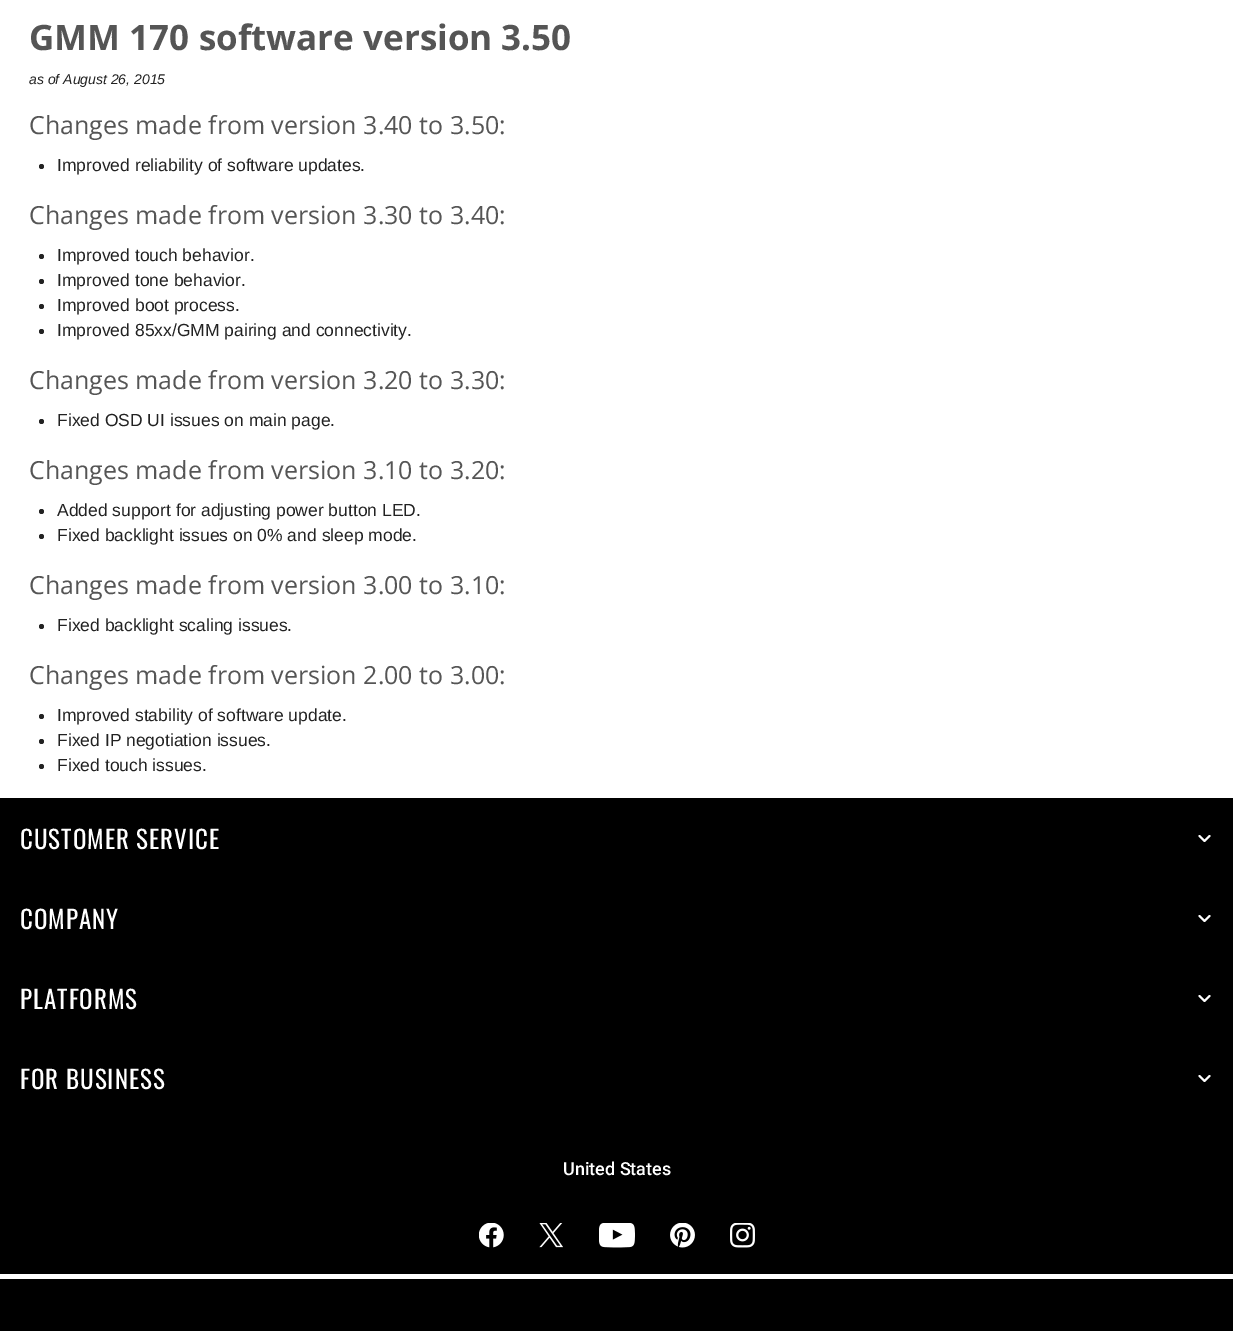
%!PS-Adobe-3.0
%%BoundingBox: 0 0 1233 1332
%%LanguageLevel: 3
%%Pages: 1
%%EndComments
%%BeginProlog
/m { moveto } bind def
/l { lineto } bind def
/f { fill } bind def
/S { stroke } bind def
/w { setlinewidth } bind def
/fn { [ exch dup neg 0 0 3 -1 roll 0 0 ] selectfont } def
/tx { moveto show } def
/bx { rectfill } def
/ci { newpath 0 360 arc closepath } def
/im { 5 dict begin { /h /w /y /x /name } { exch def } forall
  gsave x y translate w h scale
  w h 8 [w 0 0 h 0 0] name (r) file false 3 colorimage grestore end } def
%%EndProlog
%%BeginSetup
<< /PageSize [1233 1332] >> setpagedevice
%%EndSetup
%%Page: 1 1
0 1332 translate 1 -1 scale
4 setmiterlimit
1 setgray
0 0 1233 1332 bx
/OpenSans-Bold 35 fn
0.333 setgray
(GMM 170 software version 3.50) 29 50 tx
/LiberationSans-Italic 14 fn
0.133 setgray
(as of August 26, 2015) 29 84 tx
/OpenSans-Regular 25 fn
0.333 setgray
(Changes made from version 3.40 to 3.50:) 29 134 tx
0.133 setgray
41.5 166.5 2.5 ci f
/LiberationSans-Regular 17.5 fn
(Improved reliability of software updates.) 57 171 tx
/OpenSans-Regular 25 fn
0.333 setgray
(Changes made from version 3.30 to 3.40:) 29 224 tx
0.133 setgray
41.5 256.5 2.5 ci f
/LiberationSans-Regular 17.5 fn
(Improved touch behavior.) 57 261 tx
41.5 281.5 2.5 ci f
(Improved tone behavior.) 57 286 tx
41.5 306.5 2.5 ci f
(Improved boot process.) 57 311 tx
41.5 331.5 2.5 ci f
(Improved 85xx/GMM pairing and connectivity.) 57 336 tx
/OpenSans-Regular 25 fn
0.333 setgray
(Changes made from version 3.20 to 3.30:) 29 389 tx
0.133 setgray
41.5 421.5 2.5 ci f
/LiberationSans-Regular 17.5 fn
(Fixed OSD UI issues on main page.) 57 426 tx
/OpenSans-Regular 25 fn
0.333 setgray
(Changes made from version 3.10 to 3.20:) 29 479 tx
0.133 setgray
41.5 511.5 2.5 ci f
/LiberationSans-Regular 17.5 fn
(Added support for adjusting power button LED.) 57 516 tx
41.5 536.5 2.5 ci f
(Fixed backlight issues on 0% and sleep mode.) 57 541 tx
/OpenSans-Regular 25 fn
0.333 setgray
(Changes made from version 3.00 to 3.10:) 29 594 tx
0.133 setgray
41.5 626.5 2.5 ci f
/LiberationSans-Regular 17.5 fn
(Fixed backlight scaling issues.) 57 631 tx
/OpenSans-Regular 25 fn
0.333 setgray
(Changes made from version 2.00 to 3.00:) 29 684 tx
0.133 setgray
41.5 716.5 2.5 ci f
/LiberationSans-Regular 17.5 fn
(Improved stability of software update.) 57 721 tx
41.5 741.5 2.5 ci f
(Fixed IP negotiation issues.) 57 746 tx
41.5 766.5 2.5 ci f
(Fixed touch issues.) 57 771 tx
0 setgray
0 798 1233 533 bx
/Oswald-Regular 25 fn
1 setgray
20 849 m 1 0 (CUSTOMER SERVICE) ashow
1.9 w
1 setlinecap
1 setlinejoin
1209.5 836 m 1204.5 841 l 1199.5 836 l S
20 929 m 1 0 (COMPANY) ashow
1209.5 916 m 1204.5 921 l 1199.5 916 l S
20 1009 m 1 0 (PLATFORMS) ashow
1209.5 996 m 1204.5 1001 l 1199.5 996 l S
20 1089 m 1 0 (FOR BUSINESS) ashow
1209.5 1076 m 1204.5 1081 l 1199.5 1076 l S
0 1274 1233 5 bx
/Roboto-Medium 18 fn
(United States) 563 1175 tx
(image0.raw) 479 1223 25 25 im
(image1.raw) 539 1223 24 25 im
(image2.raw) 599 1223 36 25 im
(image3.raw) 670 1223 25 25 im
(image4.raw) 730 1223 25 25 im
showpage
%%EOF
